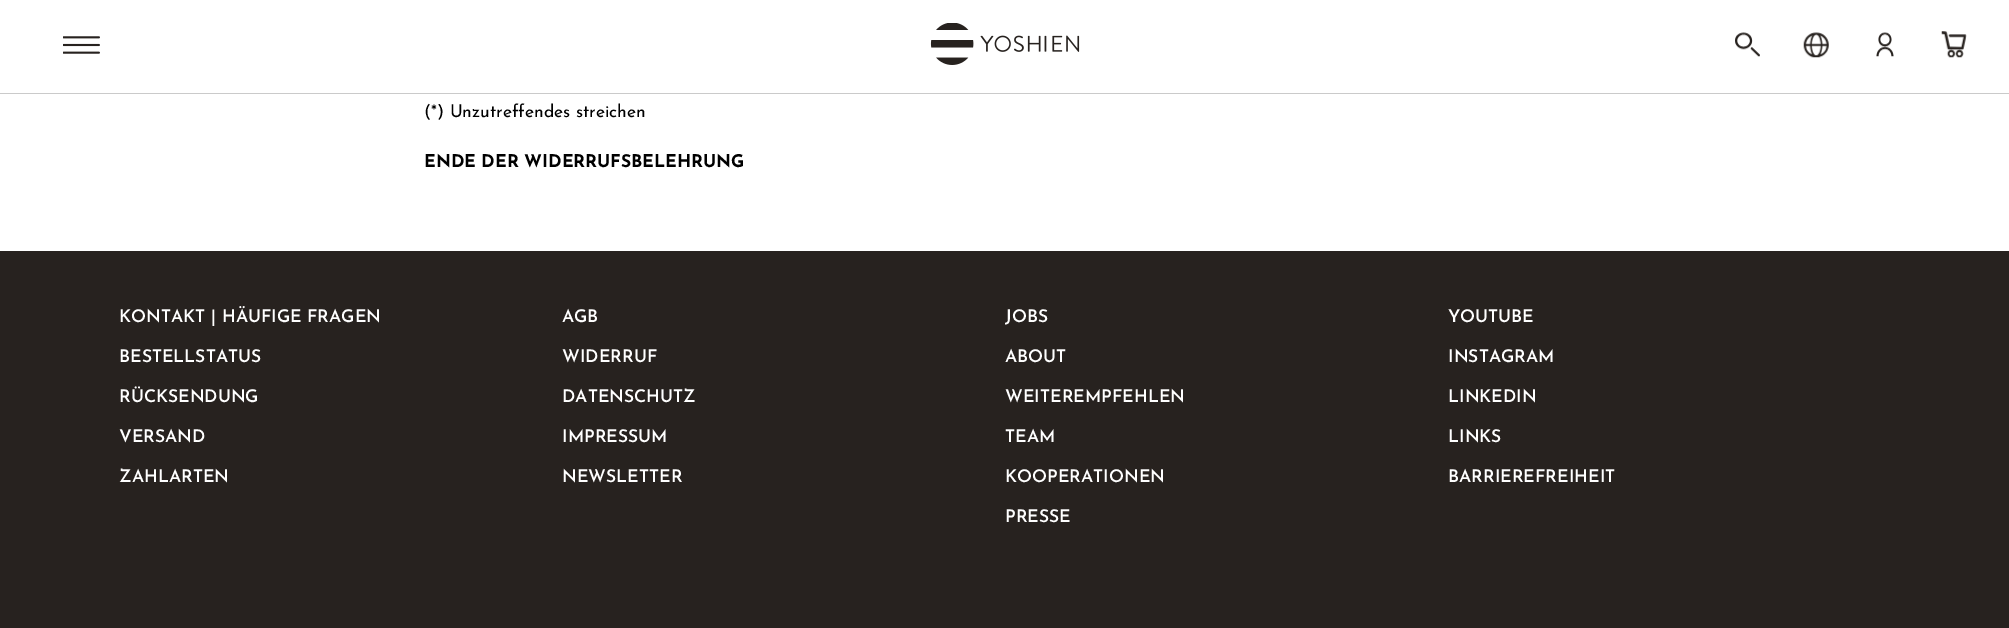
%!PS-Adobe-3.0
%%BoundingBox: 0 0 2009 628
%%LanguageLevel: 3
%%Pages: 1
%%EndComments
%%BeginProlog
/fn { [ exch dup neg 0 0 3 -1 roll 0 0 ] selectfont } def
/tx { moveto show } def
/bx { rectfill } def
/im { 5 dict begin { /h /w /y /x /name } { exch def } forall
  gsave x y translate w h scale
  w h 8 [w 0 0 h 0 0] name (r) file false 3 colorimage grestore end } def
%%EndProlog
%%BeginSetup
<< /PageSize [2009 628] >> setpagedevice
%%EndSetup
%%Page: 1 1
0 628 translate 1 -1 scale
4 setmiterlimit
1 setgray
0 0 2009 628 bx
0.792 setgray
0 93 2009 1 bx
(image0.raw) 63 36 37 18 im
(image1.raw) 930 23 150 42 im
(image2.raw) 1735 32 25 25 im
(image3.raw) 1803 32 26 26 im
(image4.raw) 1876 32 18 25 im
(image5.raw) 1941 31 26 27 im
/JosefinSans-Thin 17.5 fn
0 setgray
(\(*\) Unzutreffendes streichen) 424 117 tx
/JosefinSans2-Thin 17.5 fn
(ENDE DER WIDERRUFSBELEHRUNG) 424 167 tx
0.153 0.133 0.122 setrgbcolor
0 251 2009 377 bx
/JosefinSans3-Thin 17.5 fn
1 setgray
(KONTAKT | HÄUFIGE FRAGEN) 119 322 tx
(BESTELLSTATUS) 119 362 tx
(RÜCKSENDUNG) 119 402 tx
(VERSAND) 119 442 tx
(ZAHLARTEN) 119 482 tx
(AGB) 562 322 tx
(WIDERRUF) 562 362 tx
(DATENSCHUTZ) 562 402 tx
(IMPRESSUM) 562 442 tx
(NEWSLETTER) 562 482 tx
(JOBS) 1005 322 tx
(ABOUT) 1005 362 tx
(WEITEREMPFEHLEN) 1005 402 tx
(TEAM) 1005 442 tx
(KOOPERATIONEN) 1005 482 tx
(PRESSE) 1005 522 tx
(YOUTUBE) 1448 322 tx
(INSTAGRAM) 1448 362 tx
(LINKEDIN) 1448 402 tx
(LINKS) 1448 442 tx
(BARRIEREFREIHEIT) 1448 482 tx
showpage
%%EOF
